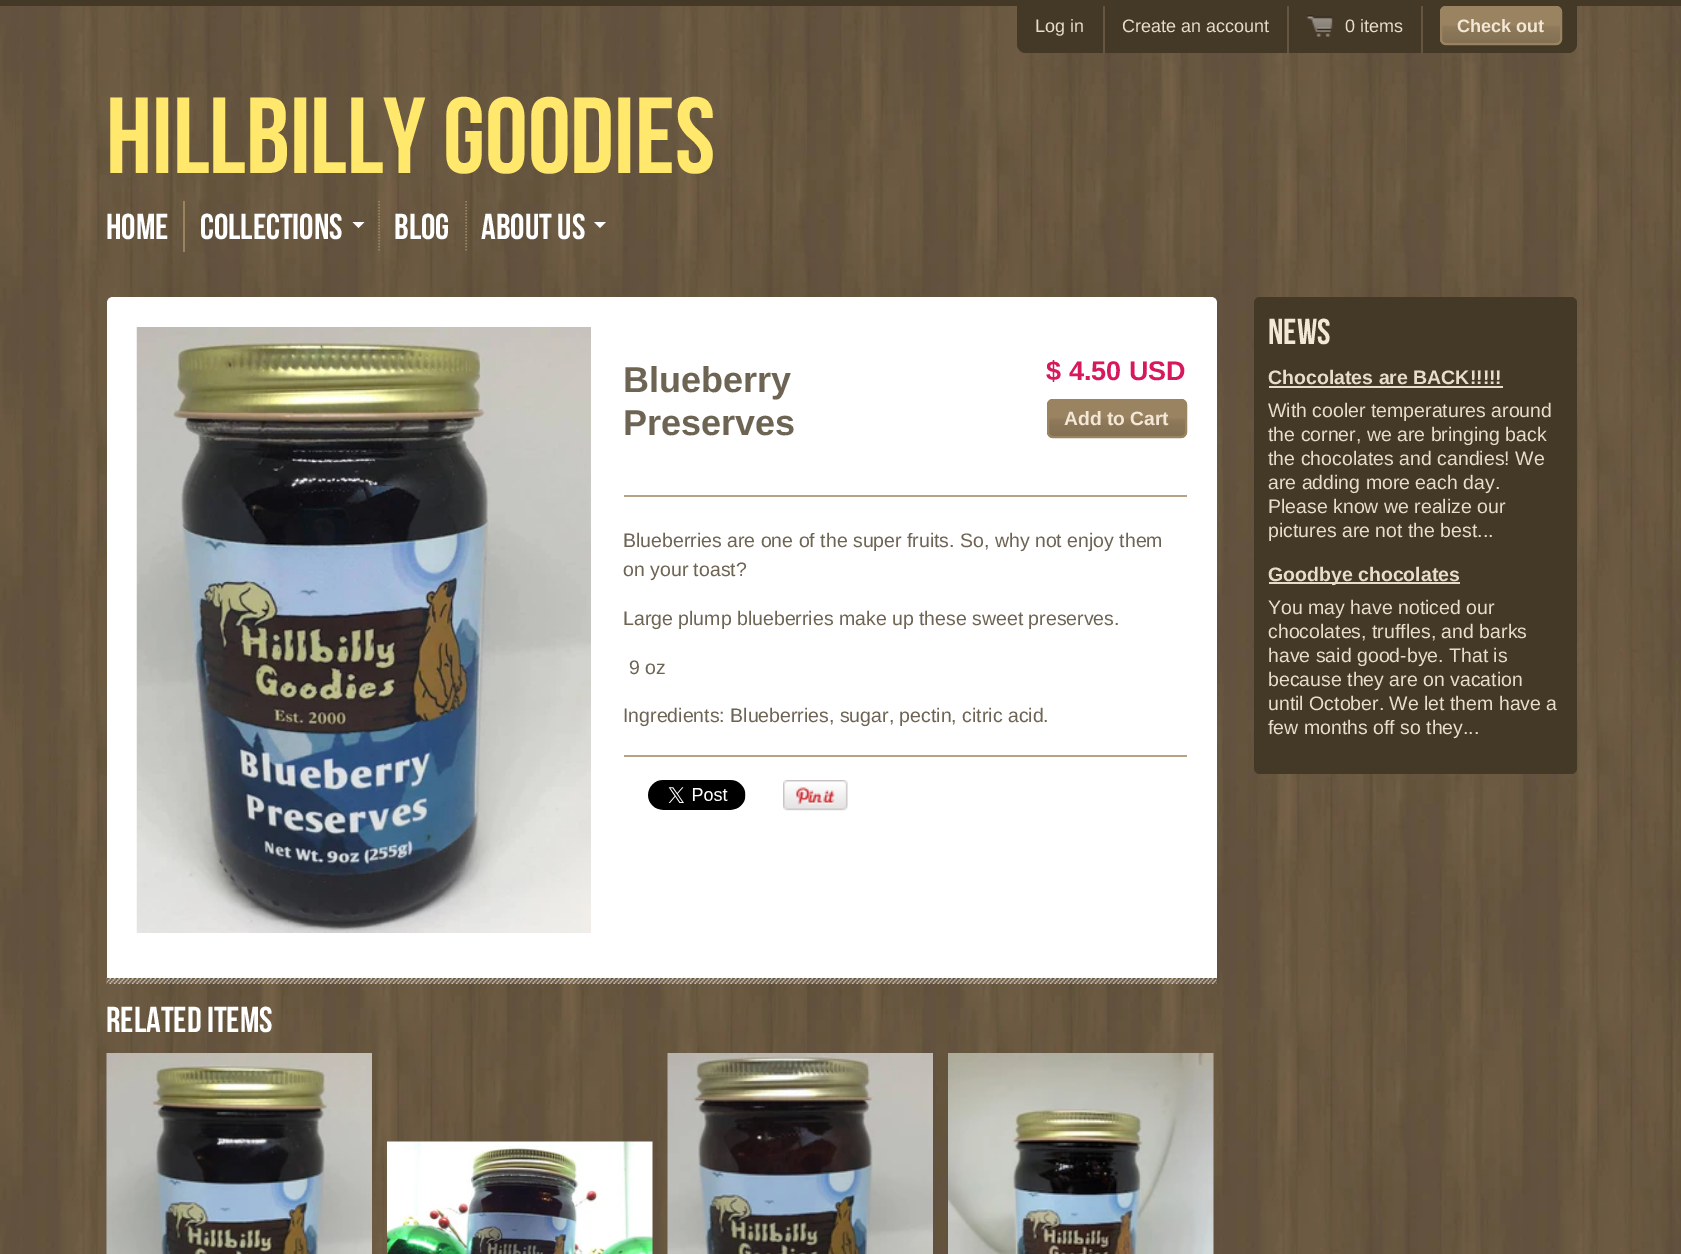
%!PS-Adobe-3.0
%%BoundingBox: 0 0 1681 1254
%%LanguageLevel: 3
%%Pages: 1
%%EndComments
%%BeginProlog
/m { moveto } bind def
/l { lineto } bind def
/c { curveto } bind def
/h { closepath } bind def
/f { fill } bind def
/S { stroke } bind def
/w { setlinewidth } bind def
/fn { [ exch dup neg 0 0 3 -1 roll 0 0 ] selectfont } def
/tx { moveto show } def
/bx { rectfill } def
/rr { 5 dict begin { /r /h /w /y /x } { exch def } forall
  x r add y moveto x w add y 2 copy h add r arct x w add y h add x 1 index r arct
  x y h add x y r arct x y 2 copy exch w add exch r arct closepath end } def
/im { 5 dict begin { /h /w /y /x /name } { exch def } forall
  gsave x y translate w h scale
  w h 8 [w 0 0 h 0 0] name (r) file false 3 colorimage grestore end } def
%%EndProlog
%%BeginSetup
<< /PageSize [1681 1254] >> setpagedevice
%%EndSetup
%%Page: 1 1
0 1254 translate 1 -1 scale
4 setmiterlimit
1 setgray
0 0 1681 1254 bx
(image0.raw) 0 6 1681 1248 im
0.267 0.22 0.153 setrgbcolor
0 0 1681 6 bx
1017 6 m 1577 6 l 1577 44 l 1577 49 1573 53 1568 53 c 1026 53 l 1021 53 1017 49 1017 44 c h f
0.4 0.337 0.247 setrgbcolor
1103 6 2 47 bx
/LiberationSans-Regular 18 fn
0.91 0.863 0.792 setrgbcolor
(Log in) 1035 32 tx
0.4 0.337 0.247 setrgbcolor
1287 6 2 47 bx
0.91 0.863 0.792 setrgbcolor
(Create an account) 1122 32 tx
0.4 0.337 0.247 setrgbcolor
1421 6 2 47 bx
(image1.raw) 1306 15 27 22 im
0.91 0.863 0.792 setrgbcolor
(0 items) 1345 32 tx
0.604 0.514 0.38 setrgbcolor
1440 6 122 39 6 rr f
(image2.raw) 1440 25 122 19 im
2 w
1441 7 120 37 5 rr S
/LiberationSans-Bold 18 fn
0.953 0.906 0.835 setrgbcolor
(Check out) 1457 32 tx
/BebasNeue-Regular 108 fn
1 0.91 0.42 setrgbcolor
(Hillbilly Goodies) 106 173 tx
0.608 0.514 0.369 setrgbcolor
183 201 2 51 bx
/BebasNeue-Regular 36 fn
1 setgray
(Home) 106 239 tx
0.608 0.514 0.369 setrgbcolor
1.5 w
[1.5 1.5] 0 setdash
379 201 m 379 252 l S
1 setgray
(Collections) 200 239 tx
352.5 222 m 364.5 222 l 358.5 228 l h f
0.608 0.514 0.369 setrgbcolor
466 201 m 466 252 l S
1 setgray
(Blog) 394 239 tx
(About Us) 481 239 tx
594 222 m 606 222 l 600 228 l h f
113 297 m 1211 297 l 1214.5 297 1217 299.5 1217 303 c 1217 978 l 107 978 l 107 303 l 107 299.5 109.5 297 113 297 c h f
(image3.raw) 136 327 455 606 im
0.714 0.635 0.522 setrgbcolor
624 495 563 2 bx
/LiberationSans-Bold 36 fn
0.431 0.392 0.329 setrgbcolor
(Blueberry) 623 392 tx
(Preserves) 623 435 tx
/LiberationSans-Bold 27 fn
0.843 0.094 0.361 setrgbcolor
($ 4.50 USD) 1046 380 tx
0.604 0.514 0.38 setrgbcolor
1047 399 140 39 6 rr f
(image4.raw) 1047 418 140 19 im
2 w
[] 0 setdash
1048 400 138 37 5 rr S
/LiberationSans-Bold 19.25 fn
0.953 0.906 0.835 setrgbcolor
(Add to Cart) 1064 425 tx
/LiberationSans-Regular 19.5 fn
0.431 0.392 0.329 setrgbcolor
(Blueberries are one of the super fruits. So, why not enjoy them) 623 547 tx
(on your toast?) 623 576 tx
(Large plump blueberries make up these sweet preserves.) 623 625 tx
(9 oz) 629 674 tx
(Ingredients: Blueberries, sugar, pectin, citric acid.) 623 722 tx
0.714 0.635 0.522 setrgbcolor
624 755 563 2 bx
(image5.raw) 648 780 98 30 im
(image6.raw) 783 780 65 31 im
(image7.raw) 106 978 1111 6 im
/BebasNeue-Regular 36 fn
1 setgray
(Related Items) 106 1032 tx
(image8.raw) 106 1053 266 201 im
(image9.raw) 387 1141 266 113 im
(image10.raw) 667 1053 266 201 im
(image11.raw) 948 1053 266 201 im
0.267 0.22 0.153 setrgbcolor
1254 297 323 477 6 rr f
0.953 0.906 0.835 setrgbcolor
(News) 1268 344 tx
/LiberationSans-Bold 19.5 fn
0.91 0.863 0.792 setrgbcolor
(Chocolates are BACK!!!!!) 1268 384 tx
1269 386 234 2 bx
/LiberationSans-Regular 19.5 fn
(With cooler temperatures around) 1268 417 tx
(the corner, we are bringing back) 1268 441 tx
(the chocolates and candies! We) 1268 465 tx
(are adding more each day.) 1268 489 tx
(Please know we realize our) 1268 513 tx
(pictures are not the best...) 1268 537 tx
1269 582 191 2 bx
/LiberationSans-Bold 19.5 fn
(Goodbye chocolates) 1268 581 tx
/LiberationSans-Regular 19.5 fn
(You may have noticed our) 1268 614 tx
(chocolates, truffles, and barks) 1268 638 tx
(have said good-bye. That is) 1268 662 tx
(because they are on vacation) 1268 686 tx
(until October. We let them have a) 1268 710 tx
(few months off so they...) 1268 734 tx
showpage
%%EOF
